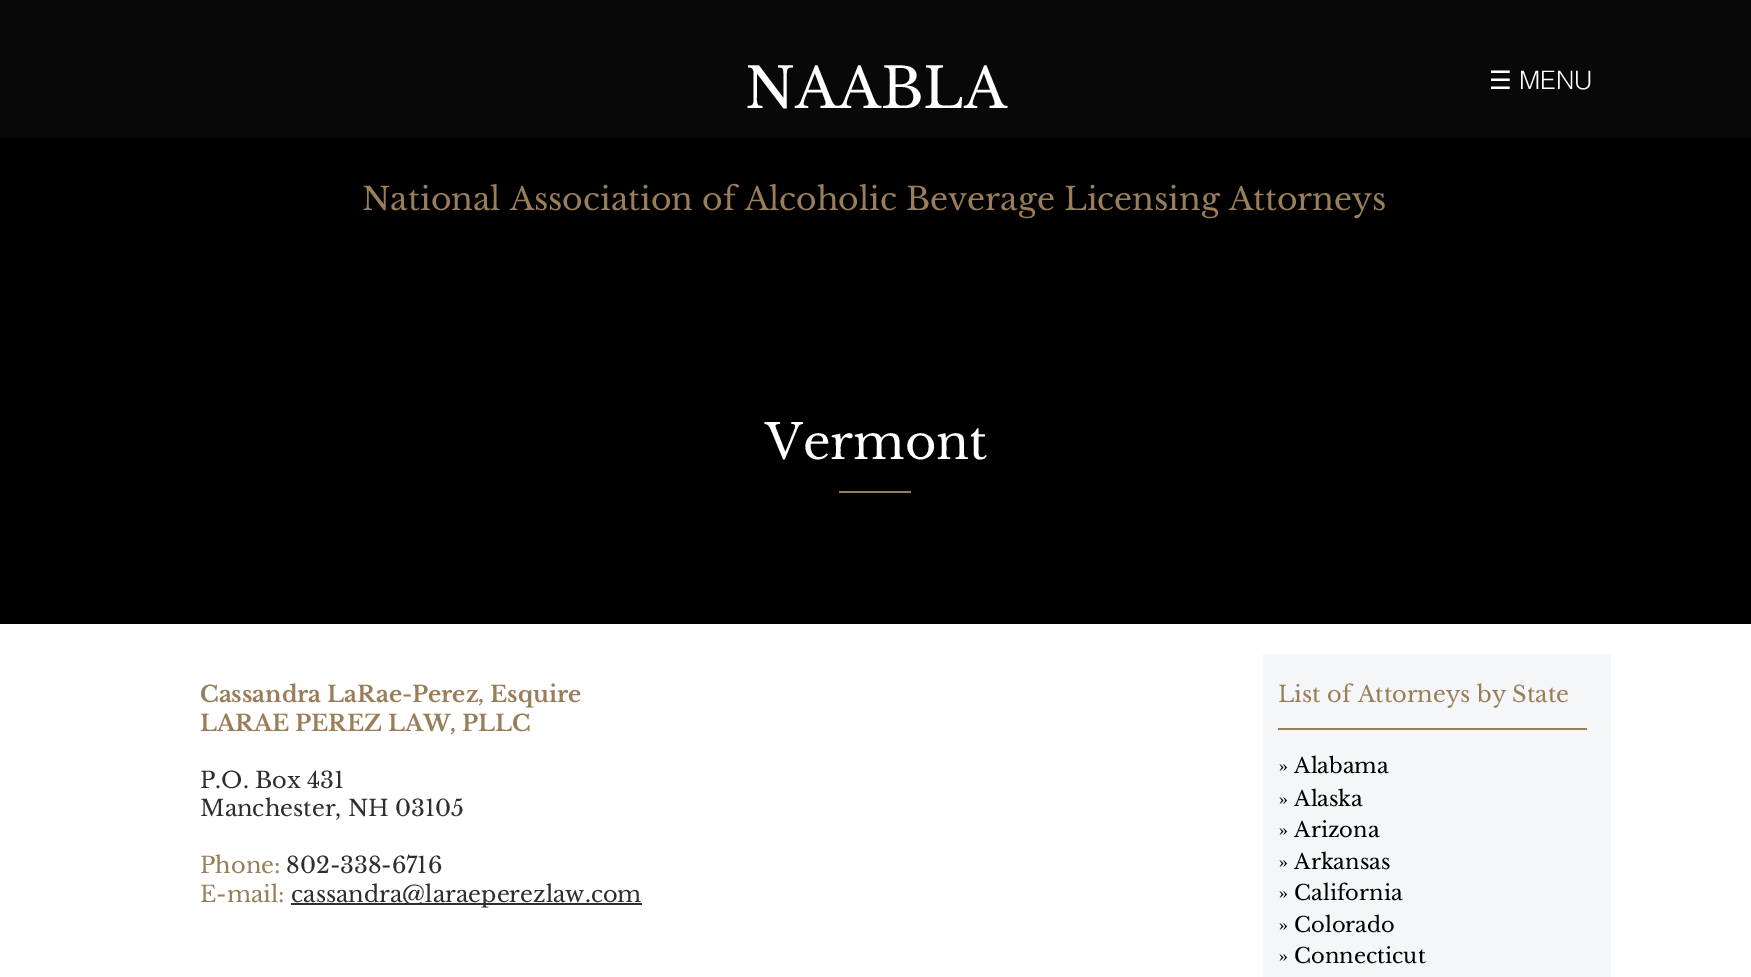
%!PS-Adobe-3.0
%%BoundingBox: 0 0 1751 977
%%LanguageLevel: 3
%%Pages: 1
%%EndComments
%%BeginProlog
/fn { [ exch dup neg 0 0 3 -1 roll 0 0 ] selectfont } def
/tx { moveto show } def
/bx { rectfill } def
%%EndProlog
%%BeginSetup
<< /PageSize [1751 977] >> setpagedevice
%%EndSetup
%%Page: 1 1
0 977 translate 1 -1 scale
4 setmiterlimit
1 setgray
0 0 1751 977 bx
0.031 setgray
0 0 1751 138 bx
/LibreBaskerville-Regular 55.5 fn
1 setgray
(NAABLA) 745 108 tx
/DejaVuSans-Regular 25.5 fn
(☰) 1489 89 tx
/helvetica-Light 25.5 fn
(MENU) 1519 89 tx
0 setgray
0 138 1751 486 bx
/LibreBaskerville-Regular 31.5 fn
0.6 0.494 0.349 setrgbcolor
(National Association of Alcoholic Beverage Licensing Attorneys) 362 210 tx
/LibreBaskerville-Regular 48 fn
1 setgray
(Vermont) 765 459 tx
0.6 0.494 0.349 setrgbcolor
839 491 72 2 bx
/LibreBaskerville-Bold 22.5 fn
(Cassandra LaRae-Perez, Esquire) 200 702 tx
(LARAE PEREZ LAW, PLLC) 200 731 tx
/LibreBaskerville-Regular 22.5 fn
0.184 0.18 0.18 setrgbcolor
(P.O. Box 431) 200 788 tx
(Manchester, NH 03105) 200 816 tx
0.6 0.494 0.349 setrgbcolor
(Phone:) 200 873 tx
0.184 0.18 0.18 setrgbcolor
(802-338-6716) 286 873 tx
0.6 0.494 0.349 setrgbcolor
(E-mail:) 200 902 tx
0.184 0.18 0.18 setrgbcolor
291 903 351 2 bx
(cassandra@laraeperezlaw.com) 291 902 tx
0.961 0.965 0.969 setrgbcolor
1263 654 348 323 bx
0.6 0.494 0.349 setrgbcolor
1278 728 309 2 bx
(List of Attorneys by State) 1278 702 tx
/LibreBaskerville-Regular 21 fn
0 setgray
(» Alabama) 1278 773 tx
(» Alaska) 1278 806 tx
(» Arizona) 1278 837 tx
(» Arkansas) 1278 869 tx
(» California) 1278 900 tx
(» Colorado) 1278 932 tx
(» Connecticut) 1278 963 tx
showpage
%%EOF
